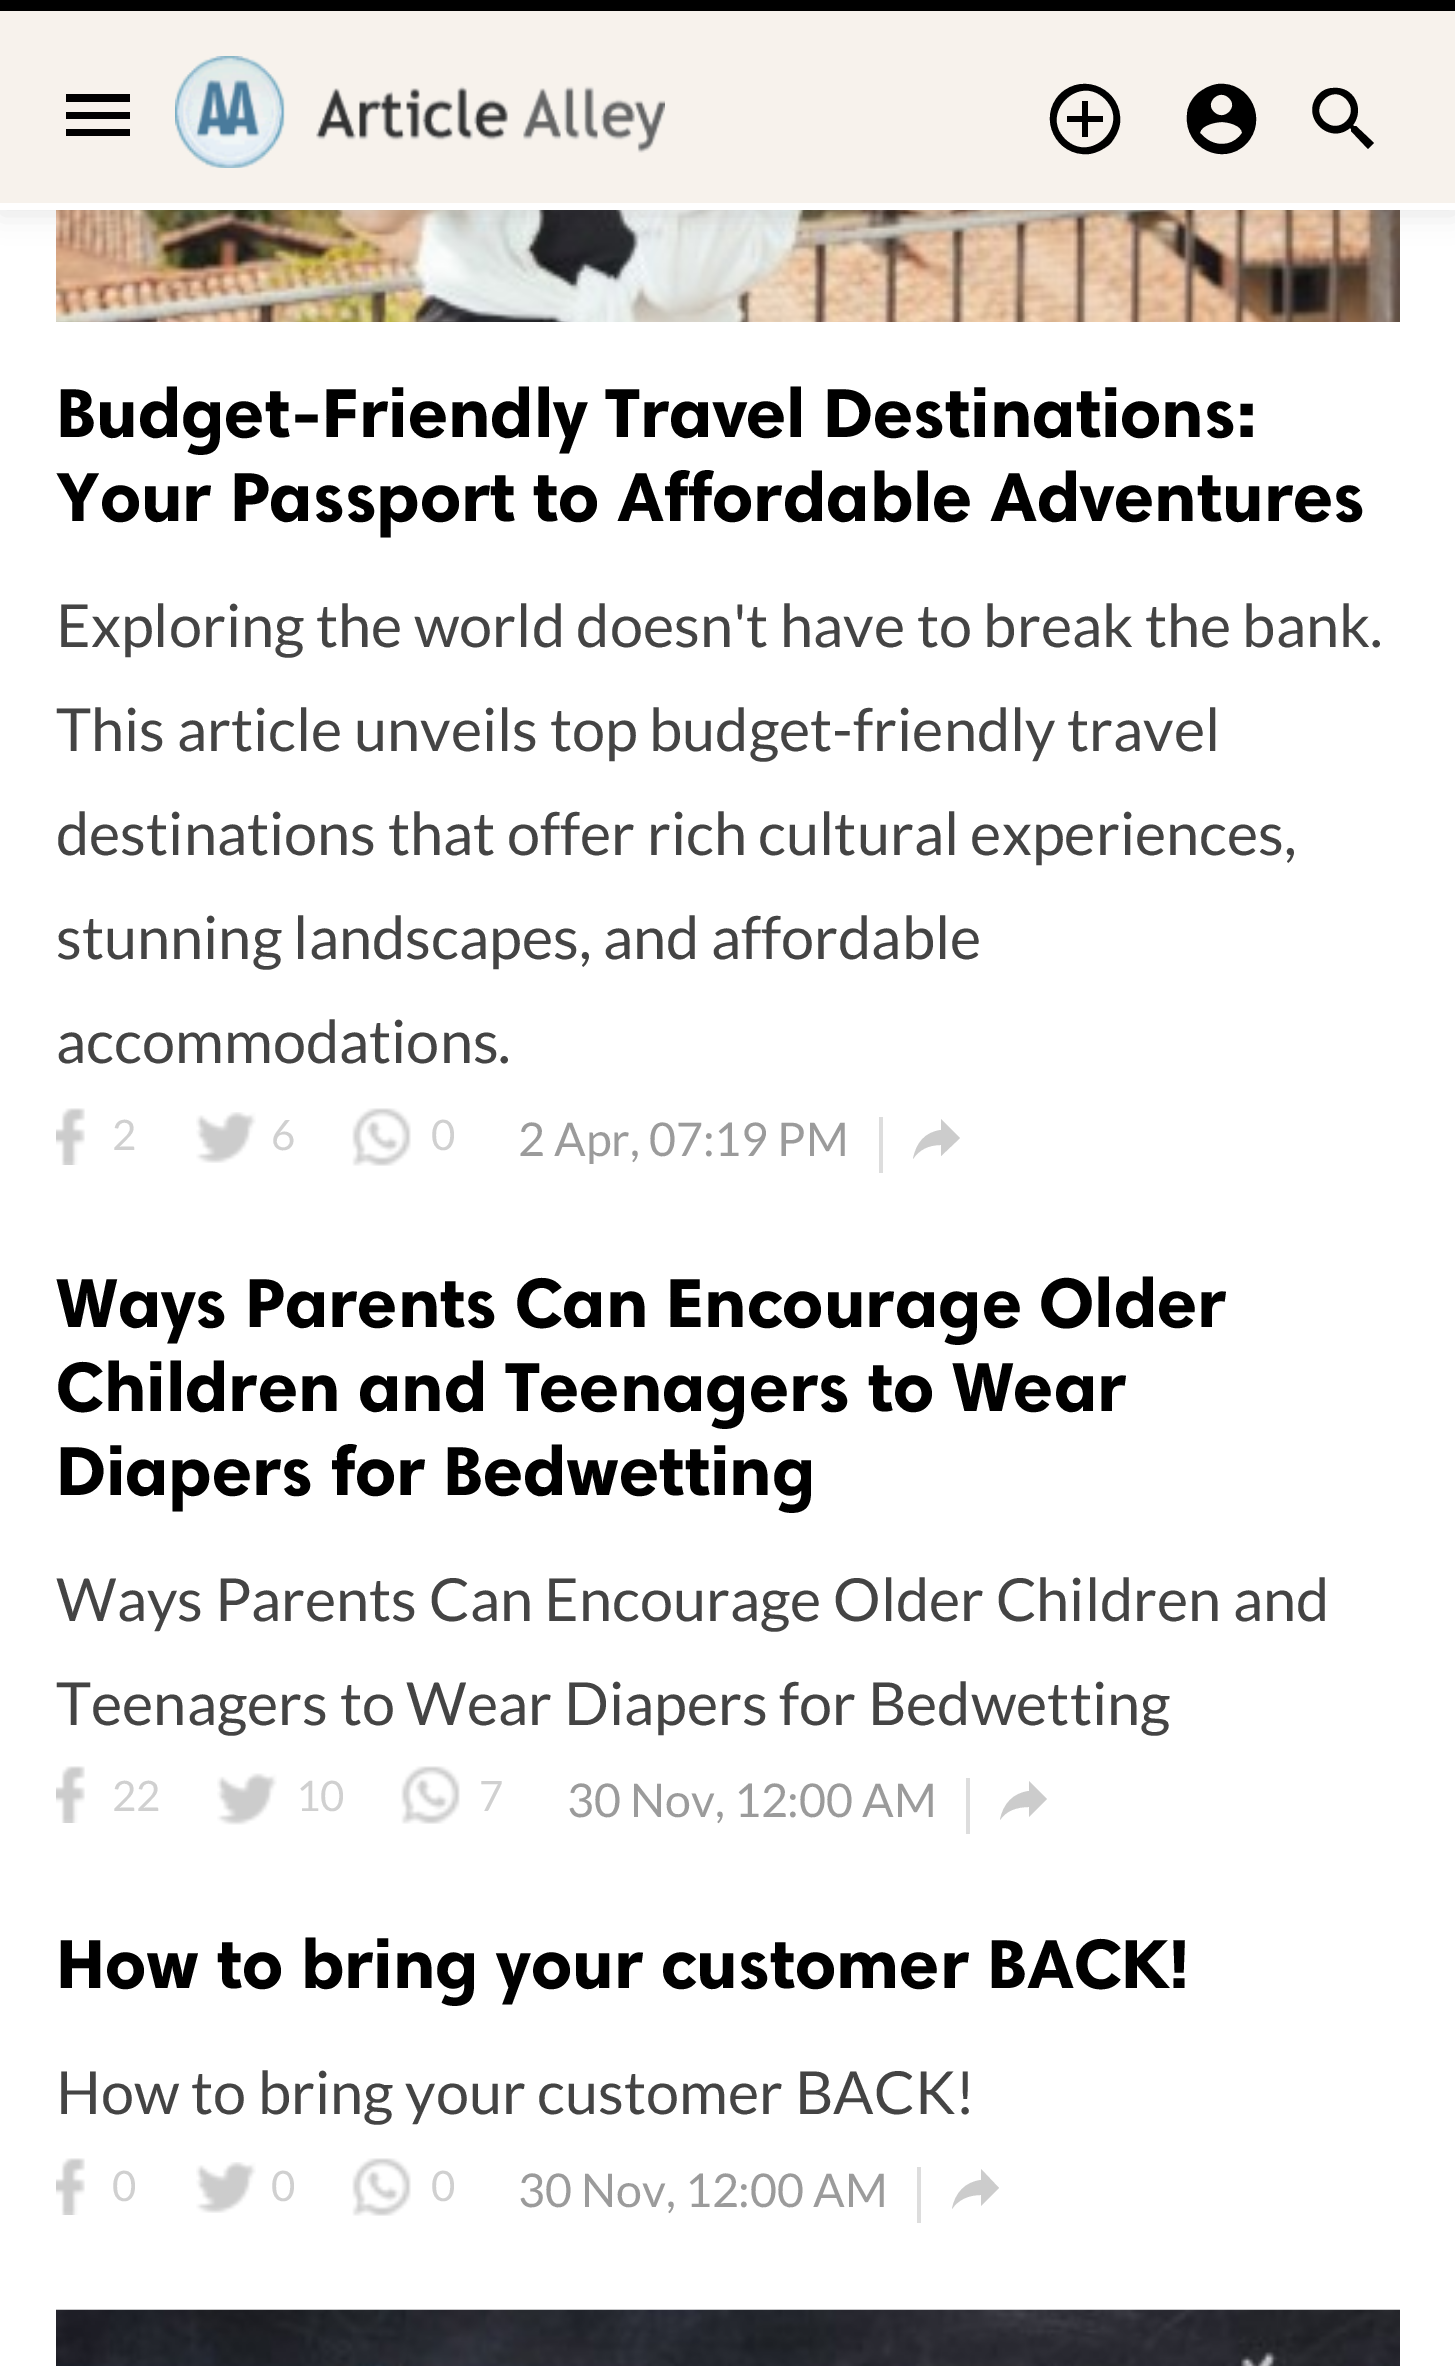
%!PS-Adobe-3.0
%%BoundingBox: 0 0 1455 2366
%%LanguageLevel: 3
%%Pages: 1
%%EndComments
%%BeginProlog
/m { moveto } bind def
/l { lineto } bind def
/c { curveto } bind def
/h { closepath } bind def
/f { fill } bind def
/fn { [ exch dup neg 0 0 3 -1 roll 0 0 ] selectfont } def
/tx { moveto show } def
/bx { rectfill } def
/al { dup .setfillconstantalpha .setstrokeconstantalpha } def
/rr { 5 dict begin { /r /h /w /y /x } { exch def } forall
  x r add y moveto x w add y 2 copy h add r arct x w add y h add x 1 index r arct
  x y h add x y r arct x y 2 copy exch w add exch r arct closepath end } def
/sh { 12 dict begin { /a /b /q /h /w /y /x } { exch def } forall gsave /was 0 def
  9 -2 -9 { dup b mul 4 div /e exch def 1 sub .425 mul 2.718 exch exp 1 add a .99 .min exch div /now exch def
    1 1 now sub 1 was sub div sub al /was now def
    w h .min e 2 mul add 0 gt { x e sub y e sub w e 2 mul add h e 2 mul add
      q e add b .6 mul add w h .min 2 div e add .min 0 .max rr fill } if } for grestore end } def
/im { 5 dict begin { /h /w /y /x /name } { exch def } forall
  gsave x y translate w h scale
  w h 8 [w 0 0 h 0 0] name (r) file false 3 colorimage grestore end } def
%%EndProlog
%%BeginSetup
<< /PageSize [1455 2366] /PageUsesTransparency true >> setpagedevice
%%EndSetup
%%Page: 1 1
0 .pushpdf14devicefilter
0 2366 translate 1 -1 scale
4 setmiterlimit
1 setgray
0 0 1455 2366 bx
(image1.raw) 56 210 1344 112 im
0 setgray
0 4 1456 210 0 14 0.1 sh
1 setgray
0 203 1455 7 bx
0.969 0.949 0.925 setrgbcolor
0 11 1455 192 bx
0 setgray
0 0 1455 11 bx
66 94 m 130 94 l 130 102 l 66 102 l h 66 119 m 66 112 l 130 112 l 130 119 l h 66 136 m 66 129 l 130 129 l 130 136 l h f
(image0.raw) 175 56 490 112 im
1065 139 m 1091 165 1131 125 1105 99 c 1079 73 1039 113 1065 139 c h 1060 94 m 1084 71 1123 90 1120 123 c 1119 131 1115 138 1110 144 c 1104 149 1097 153 1089 154 c 1056 157 1037 118 1060 94 c h 1088 101 m 1088 116 l 1103 116 l 1103 122 l 1088 122 l 1088 137 l 1082 137 l 1082 122 l 1067 122 l 1067 116 l 1082 116 l 1082 101 l h f
1210 141 m 1221 147 1235 144 1242 133 c 1242 125 1227 122 1222 122 c 1216 122 1201 125 1200 133 c 1203 136 1206 139 1210 141 c h 1229 98 m 1219 88 1204 103 1214 112 c 1224 122 1239 107 1229 98 c h 1197 94 m 1203 89 1210 85 1218 84 c 1250 81 1269 120 1246 144 c 1223 167 1184 148 1187 115 c 1187 107 1191 100 1197 94 c h f
1324 121 m 1339 136 1361 114 1346 99 c 1332 84 1309 107 1324 121 c h 1356 126 m 1374 143 l 1368 149 l 1351 131 l 1351 129 l 1350 128 l 1328 146 1299 115 1319 94 c 1323 90 1328 88 1333 88 c 1354 86 1365 109 1353 125 c 1354 126 l h f
/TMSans-Bold 70 fn
(Budget-Friendly Travel Destinations:) 56 437 tx
(Your Passport to Affordable Adventures) 56 521 tx
/Lato-Regular 59.5 fn
0.267 setgray
(Exploring the world doesn't have to break the bank.) 56 647 tx
(This article unveils top budget-friendly travel) 56 751 tx
(destinations that offer rich cultural experiences,) 56 855 tx
(stunning landscapes, and affordable) 56 959 tx
(accommodations.) 56 1063 tx
(image2.raw) 56 1108 29 57 im
/Lato-Regular 42 fn
0.816 setgray
(2) 112 1150 tx
(image3.raw) 196 1112 60 51 im
(6) 271 1150 tx
(image4.raw) 352 1108 59 58 im
(0) 431 1150 tx
/Lato-Regular 46.5 fn
0.608 setgray
(2 Apr, 07:19 PM) 518 1156 tx
0.867 setgray
879 1117 4 56 bx
0.8 setgray
941 1130 m 925 1132 916 1143 913 1159 c 919 1150 928 1145 941 1145 c 941 1156 l 960 1138 l 941 1119 l h f
/TMSans-Bold 70 fn
0 setgray
(Ways Parents Can Encourage Older) 56 1327 tx
(Children and Teenagers to Wear) 56 1411 tx
(Diapers for Bedwetting) 56 1495 tx
/Lato-Regular 59.5 fn
0.267 setgray
(Ways Parents Can Encourage Older Children and) 56 1621 tx
(Teenagers to Wear Diapers for Bedwetting) 56 1725 tx
(image2.raw) 56 1766 29 57 im
/Lato-Regular 42 fn
0.816 setgray
(22) 112 1811 tx
(image5.raw) 217 1773 60 52 im
(10) 296 1811 tx
(image6.raw) 401 1766 59 58 im
(7) 479 1811 tx
/Lato-Regular 46.5 fn
0.608 setgray
(30 Nov, 12:00 AM) 567 1817 tx
0.867 setgray
966 1778 4 56 bx
0.8 setgray
1029 1791 m 1013 1793 1003 1804 1000 1820 c 1006 1811 1016 1807 1029 1807 c 1029 1817 l 1047 1799 l 1029 1781 l h f
/TMSans-Bold 70 fn
0 setgray
(How to bring your customer BACK!) 56 1988 tx
/Lato-Regular 59.5 fn
0.267 setgray
(How to bring your customer BACK!) 56 2114 tx
(image2.raw) 56 2158 29 57 im
/Lato-Regular 42 fn
0.816 setgray
(0) 112 2201 tx
(image3.raw) 196 2162 60 51 im
(0) 271 2201 tx
(image4.raw) 352 2158 59 58 im
(0) 431 2201 tx
/Lato-Regular 46.5 fn
0.608 setgray
(30 Nov, 12:00 AM) 518 2207 tx
0.867 setgray
917 2167 4 56 bx
0.8 setgray
981 2180 m 965 2182 955 2193 952 2209 c 958 2200 968 2195 981 2195 c 981 2206 l 999 2188 l 981 2169 l h f
(image7.raw) 56 2309 1344 57 im
.poppdf14devicefilter showpage
%%EOF
